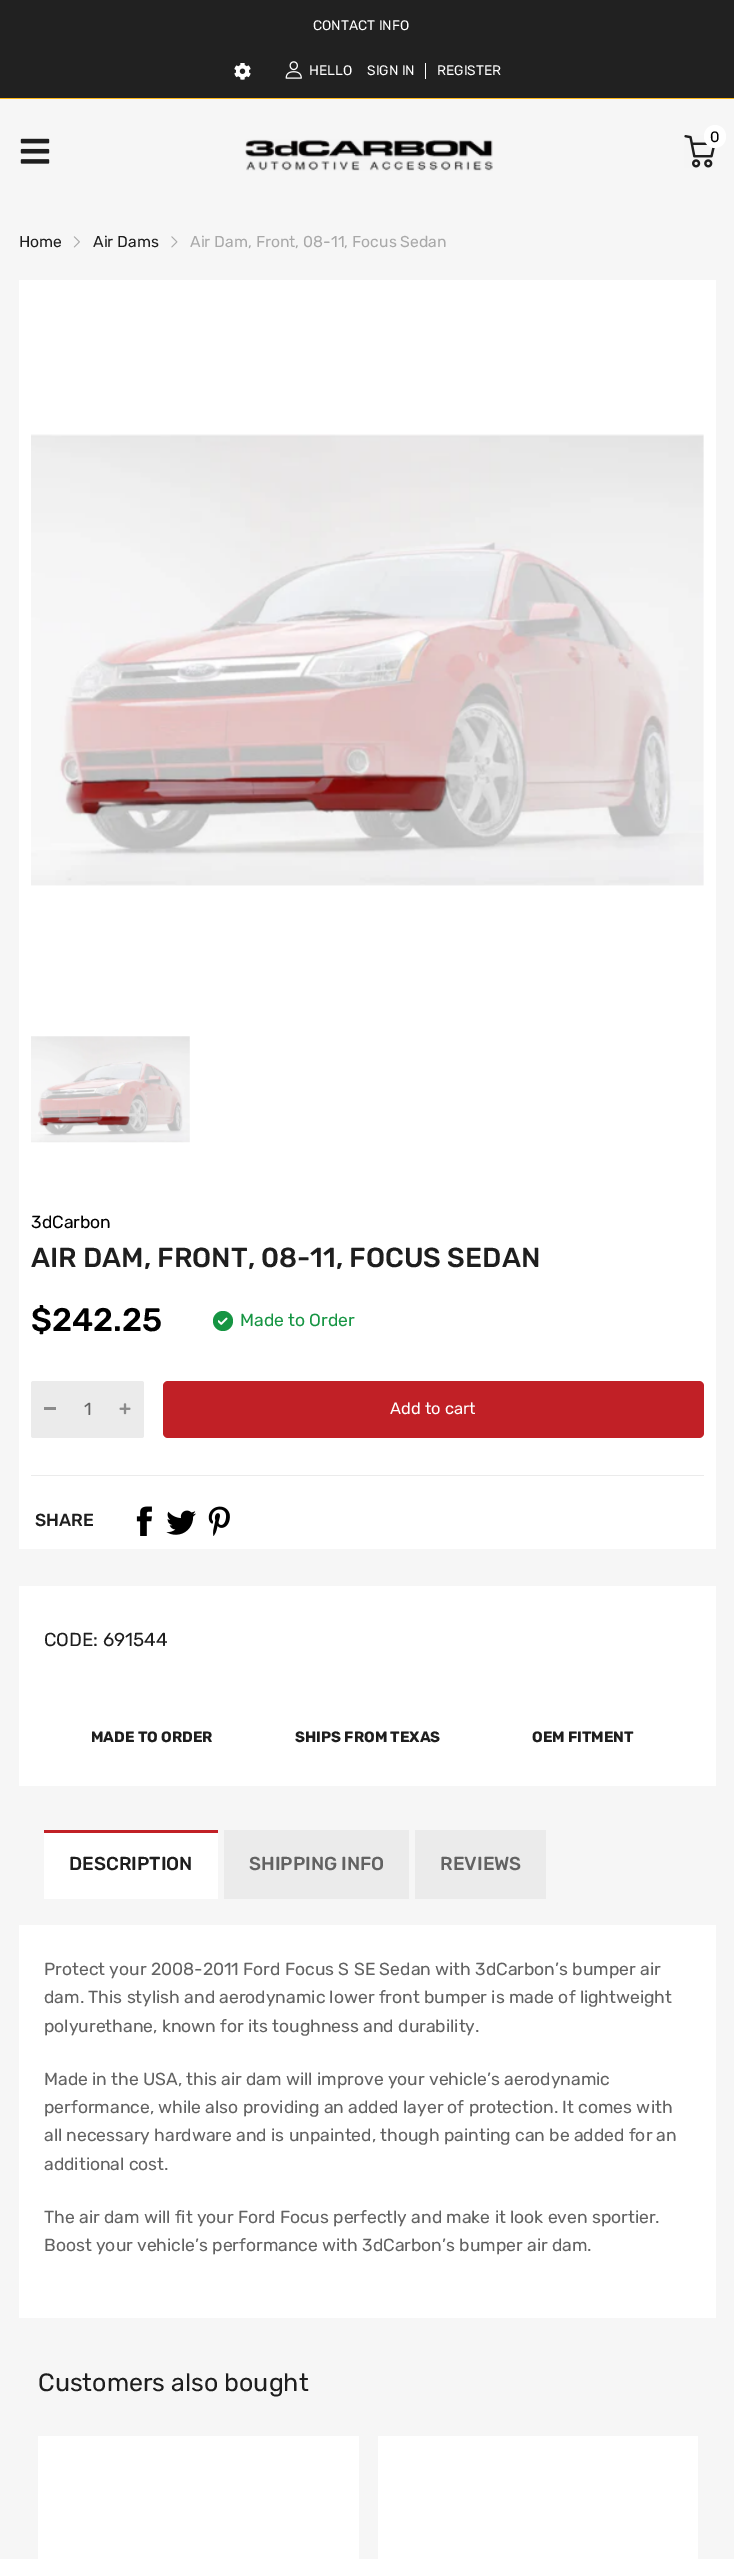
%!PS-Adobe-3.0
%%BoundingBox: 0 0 734 2559
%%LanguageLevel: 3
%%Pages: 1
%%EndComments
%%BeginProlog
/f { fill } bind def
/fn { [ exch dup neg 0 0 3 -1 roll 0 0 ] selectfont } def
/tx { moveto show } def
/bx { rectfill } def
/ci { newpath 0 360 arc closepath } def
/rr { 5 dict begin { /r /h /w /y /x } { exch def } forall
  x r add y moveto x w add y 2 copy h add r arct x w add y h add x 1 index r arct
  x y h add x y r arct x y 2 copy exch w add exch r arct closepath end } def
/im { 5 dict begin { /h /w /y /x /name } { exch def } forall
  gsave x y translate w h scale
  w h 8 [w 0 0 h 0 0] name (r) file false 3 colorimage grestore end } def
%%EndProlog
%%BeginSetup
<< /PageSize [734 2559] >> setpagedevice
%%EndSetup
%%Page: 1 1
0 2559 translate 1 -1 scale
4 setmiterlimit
0.965 setgray
0 0 734 2559 bx
0.129 setgray
0 0 734 98 bx
0.992 0.722 0.098 setrgbcolor
0 98 734 1 bx
/Rubik-Regular 13.75 fn
1 setgray
(CONTACT INFO) 313 30 tx
(image0.raw) 234 63 17 17 im
(image1.raw) 285 61 17 18 im
(HELLO) 309 75 tx
(SIGN IN) 367 75 tx
(REGISTER) 437 75 tx
425 63 1 16 bx
(image2.raw) 20 138 30 26 im
(image3.raw) 245 139 248 32 im
(image4.raw) 684 135 31 33 im
704 125 22 23 11 rr f
/Rubik-Regular 15 fn
0 setgray
(0) 710 142 tx
/Rubik-Regular 15.75 fn
0.118 setgray
(Home) 19 247 tx
(image5.raw) 73 236 7 12 im
(Air Dams) 93 247 tx
(image6.raw) 171 236 7 12 im
0.663 setgray
(Air Dam, Front, 08-11, Focus Sedan) 190 247 tx
1 setgray
19 280 697 1269 bx
(image7.raw) 31 434 673 452 im
(image8.raw) 31 1036 159 107 im
/Rubik-Regular 17.5 fn
0 setgray
(3dCarbon) 31 1228 tx
/Rubik-Medium 27.5 fn
0.118 setgray
(AIR DAM, FRONT, 08-11, FOCUS SEDAN) 31 1267 tx
/Rubik-Medium 32.5 fn
0 setgray
($242.25) 31 1331 tx
0.086 0.584 0.263 setrgbcolor
223 1321 10 ci f
(image9.raw) 218 1317 10 8 im
/Rubik-Regular 17.5 fn
(Made to Order) 240 1326 tx
0.922 setgray
31 1381 113 57 2.5 rr f
0.545 setgray
44 1407 12 3 bx
0.384 setgray
(1) 84 1415 tx
(image10.raw) 119 1403 12 12 im
0.757 0.125 0.149 setrgbcolor
163 1381 541 57 5 rr f
/Rubik-Regular 16.5 fn
1 setgray
(Add to cart) 390 1414 tx
0.922 setgray
31 1475 673 1 bx
/Rubik-Medium 17.5 fn
0.118 setgray
(SHARE) 35 1526 tx
(image11.raw) 136 1506 16 30 im
(image12.raw) 166 1510 30 25 im
(image13.raw) 208 1506 22 30 im
1 setgray
19 1586 697 200 bx
/Rubik-Regular 18.75 fn
0.118 setgray
(CODE: 691544) 44 1646 tx
/Rubik-Bold 15 fn
(MADE TO ORDER) 91 1742 tx
(SHIPS FROM TEXAS) 295 1742 tx
(OEM FITMENT) 532 1742 tx
1 setgray
44 1833 174 66 bx
0.757 0.125 0.149 setrgbcolor
44 1830 174 3 bx
/Rubik-Medium 18.75 fn
0.118 setgray
(DESCRIPTION) 69 1870 tx
0.922 setgray
224 1830 185 69 bx
0.384 setgray
(SHIPPING INFO) 249 1870 tx
0.922 setgray
415 1830 131 69 bx
0.384 setgray
(REVIEWS) 440 1870 tx
1 setgray
19 1925 697 393 bx
/Rubik-Regular 17.5 fn
0.384 setgray
(Protect your 2008-2011 Ford Focus S SE Sedan with 3dCarbon’s bumper air) 44 1975 tx
(dam. This stylish and aerodynamic lower front bumper is made of lightweight) 44 2003 tx
(polyurethane, known for its toughness and durability.) 44 2032 tx
(Made in the USA, this air dam will improve your vehicle’s aerodynamic) 44 2085 tx
(performance, while also providing an added layer of protection. It comes with) 44 2113 tx
(all necessary hardware and is unpainted, though painting can be added for an) 44 2141 tx
(additional cost.) 44 2170 tx
(The air dam will fit your Ford Focus perfectly and make it look even sportier.) 44 2223 tx
(Boost your vehicle’s performance with 3dCarbon’s bumper air dam.) 44 2251 tx
/Rubik-Regular 25 fn
0.118 setgray
(Customers also bought) 38 2391 tx
1 setgray
38 2436 321 123 bx
378 2436 320 123 bx
showpage
%%EOF
